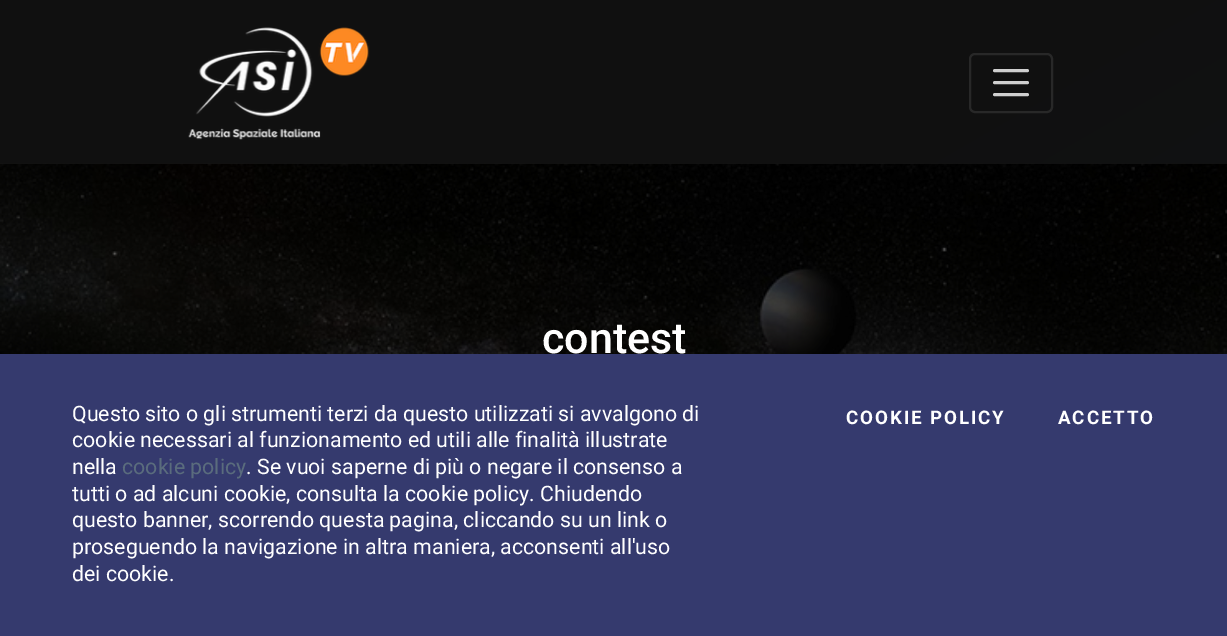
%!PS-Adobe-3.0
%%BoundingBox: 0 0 1227 636
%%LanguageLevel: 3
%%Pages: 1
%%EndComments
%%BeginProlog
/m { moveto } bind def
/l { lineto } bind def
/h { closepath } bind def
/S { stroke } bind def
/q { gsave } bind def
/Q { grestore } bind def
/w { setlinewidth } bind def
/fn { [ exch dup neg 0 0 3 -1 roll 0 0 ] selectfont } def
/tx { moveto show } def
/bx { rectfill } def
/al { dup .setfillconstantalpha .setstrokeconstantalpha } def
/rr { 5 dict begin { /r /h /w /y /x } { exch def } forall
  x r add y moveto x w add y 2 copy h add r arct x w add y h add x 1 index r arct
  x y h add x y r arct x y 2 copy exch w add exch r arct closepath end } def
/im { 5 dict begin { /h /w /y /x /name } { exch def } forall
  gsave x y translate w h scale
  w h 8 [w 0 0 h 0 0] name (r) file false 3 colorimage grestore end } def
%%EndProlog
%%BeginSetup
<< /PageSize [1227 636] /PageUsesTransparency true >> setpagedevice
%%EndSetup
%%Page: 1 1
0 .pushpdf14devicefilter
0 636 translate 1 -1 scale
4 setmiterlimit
1 setgray
0 0 1227 636 bx
q 0 0 m 1227 0 l 1227 164 l 0 164 l h clip newpath
<< /ShadingType 2 /ColorSpace /DeviceRGB /Coords [-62 36 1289 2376] /Extend [true true] /Function << /FunctionType 3 /Domain [0 1] /Functions [<< /FunctionType 2 /Domain [0 1] /C0 [0 0 0] /C1 [0 0 0] /N 1 >> << /FunctionType 2 /Domain [0 1] /C0 [0 0 0] /C1 [0.118 0.188 0.412] /N 1 >>] /Bounds [0.2] /Encode [0 1 0 1] >> >> shfill Q
(image1.raw) 0 163 1227 191 im
0.8 al
0.078 setgray
0 0 1227 164 bx
1 al
(image0.raw) 188 27 182 113 im
0.157 setgray
2 w
970 54 82 58 5 rr S
0.812 setgray
3 w
1 setlinecap
994.5 70.5 m 1027.5 70.5 l 994.5 82.5 m 1027.5 82.5 l 994.5 94.5 m 1027.5 94.5 l S
/Roboto-Medium 43 fn
1 setgray
(contest) 542 353 tx
0.208 0.227 0.431 setrgbcolor
0 354 1227 282 bx
/Roboto-Regular 21.35 fn
1 setgray
(Questo sito o gli strumenti terzi da questo utilizzati si avvalgono di) 72 421 tx
(cookie necessari al funzionamento ed utili alle finalità illustrate) 72 447 tx
(nella) 72 474 tx
0.353 0.424 0.49 setrgbcolor
(cookie policy) 122 474 tx
1 setgray
(. Se vuoi saperne di più o negare il consenso a) 246 474 tx
(tutti o ad alcuni cookie, consulta la cookie policy. Chiudendo) 72 501 tx
(questo banner, scorrendo questa pagina, cliccando su un link o) 72 527 tx
(proseguendo la navigazione in altra maniera, acconsenti all'uso) 72 554 tx
(dei cookie.) 72 581 tx
/Roboto-Bold 18.75 fn
846 424 m 1.9 0 (COOKIE POLICY) ashow
1058 424 m 1.9 0 (ACCETTO) ashow
.poppdf14devicefilter showpage
%%EOF
